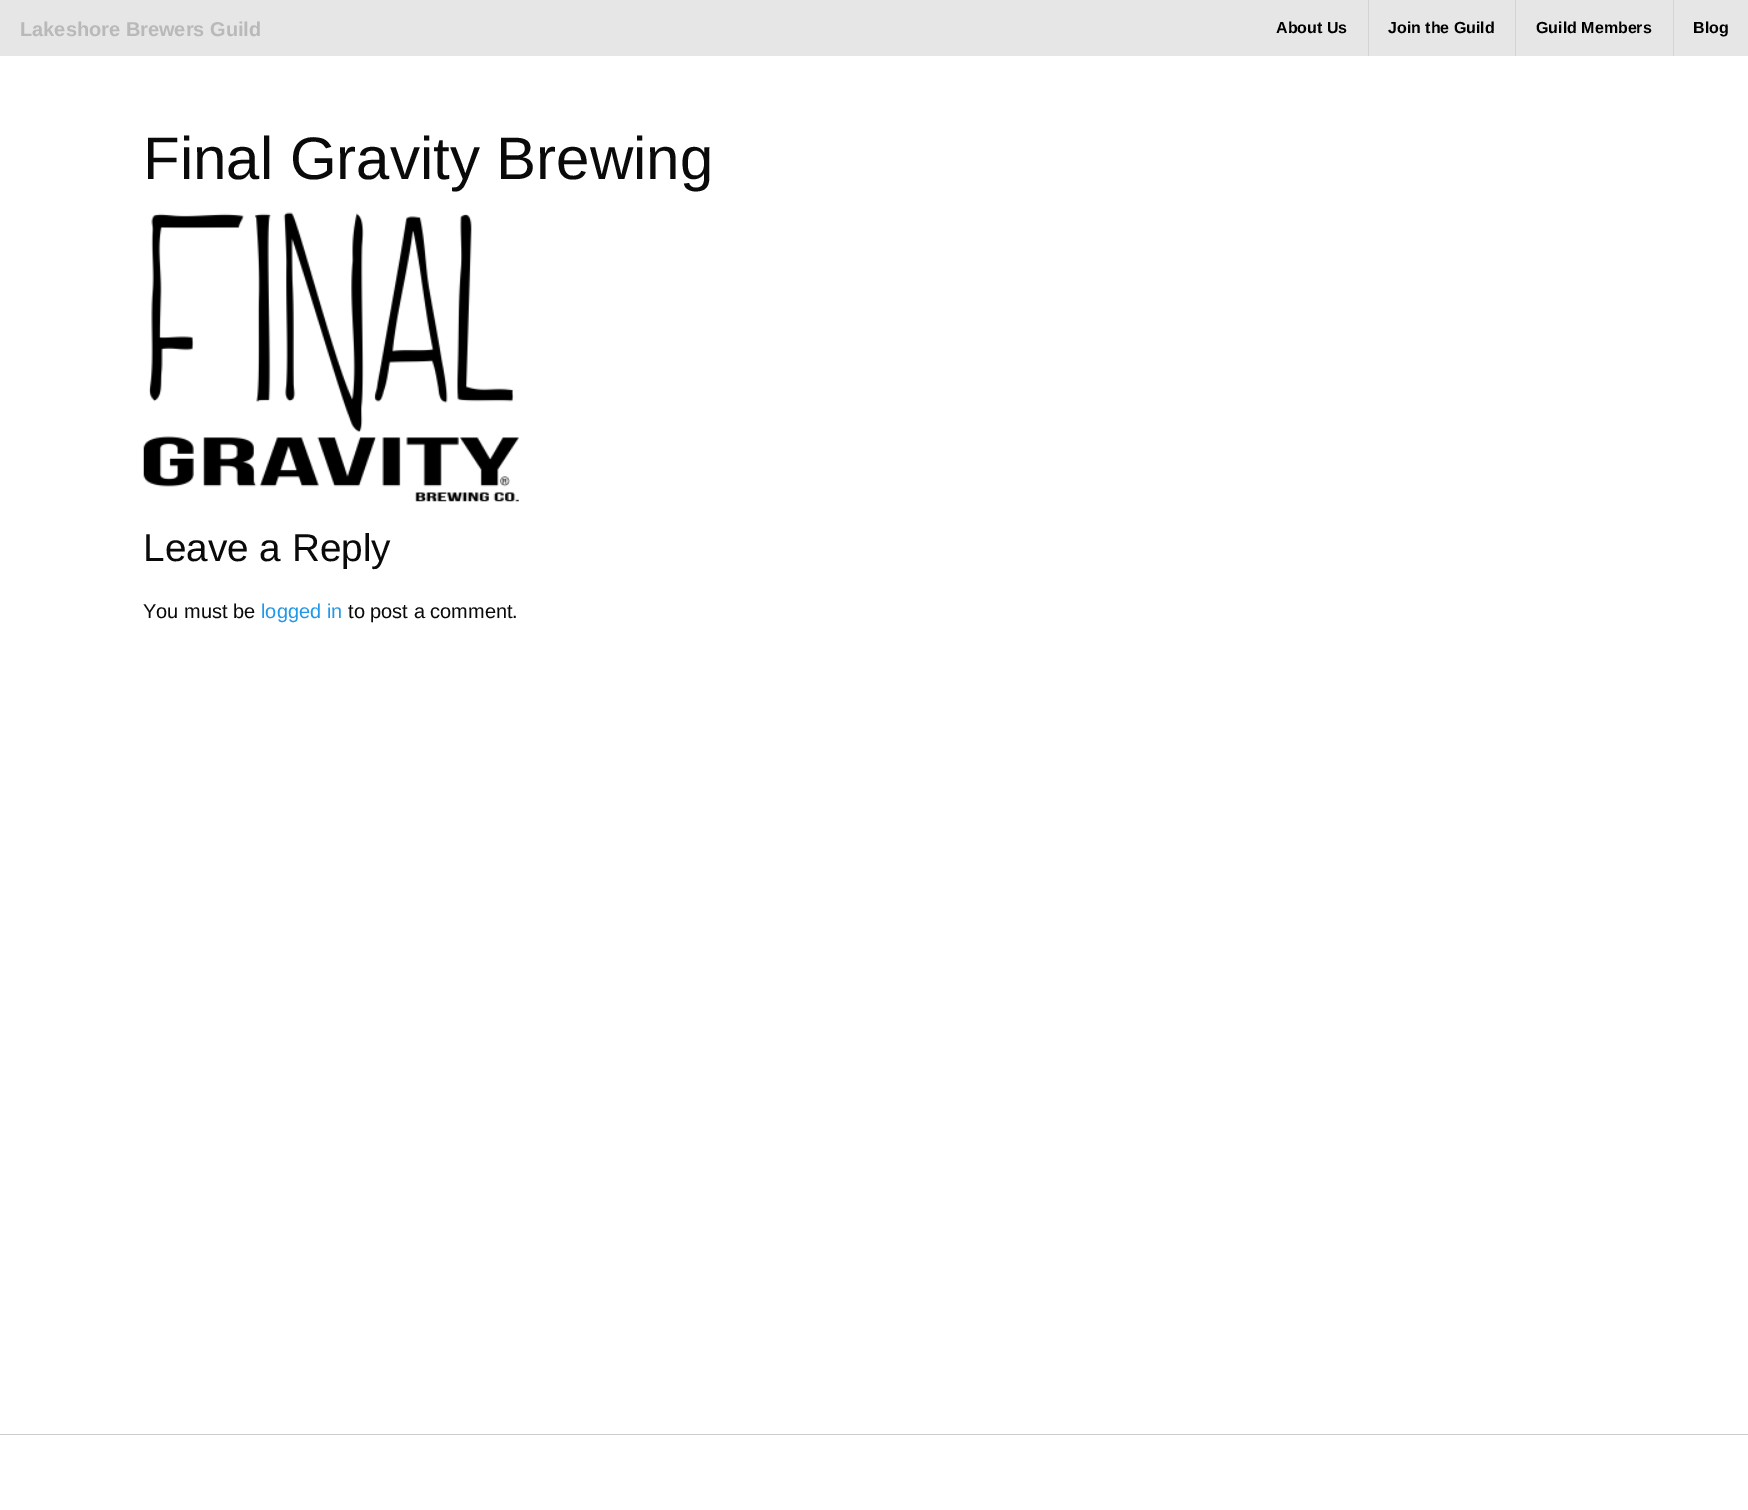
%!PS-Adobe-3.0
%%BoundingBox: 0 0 1748 1510
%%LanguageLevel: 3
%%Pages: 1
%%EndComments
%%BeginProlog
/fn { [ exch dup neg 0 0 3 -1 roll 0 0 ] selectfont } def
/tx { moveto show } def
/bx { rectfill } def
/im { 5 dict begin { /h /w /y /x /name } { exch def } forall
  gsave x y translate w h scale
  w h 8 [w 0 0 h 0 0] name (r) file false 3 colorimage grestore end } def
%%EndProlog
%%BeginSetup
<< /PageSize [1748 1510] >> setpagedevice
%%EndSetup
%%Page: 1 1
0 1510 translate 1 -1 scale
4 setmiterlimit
1 setgray
0 0 1748 1510 bx
0.902 setgray
0 0 1748 56 bx
/LiberationSans-Bold 20 fn
0.725 setgray
(Lakeshore Brewers Guild) 20 36 tx
0.827 setgray
1368 0 1 56 bx
/LiberationSans-Bold 16 fn
0 setgray
(About Us) 1276 33 tx
0.827 setgray
1515 0 1 56 bx
0 setgray
(Join the Guild) 1388 33 tx
0.827 setgray
1673 0 1 56 bx
0 setgray
(Guild Members) 1536 33 tx
(Blog) 1693 33 tx
/LiberationSans-Regular 60 fn
0.039 setgray
(Final Gravity Brewing) 143 179 tx
(image0.raw) 143 212 376 290 im
/LiberationSans-Regular 38.75 fn
(Leave a Reply) 143 561 tx
/LiberationSans-Regular 20 fn
(You must be) 143 618 tx
0.129 0.6 0.91 setrgbcolor
(logged in) 261 618 tx
0.039 setgray
(to post a comment.) 348 618 tx
0.8 setgray
0 1434 1748 1 bx
showpage
%%EOF
